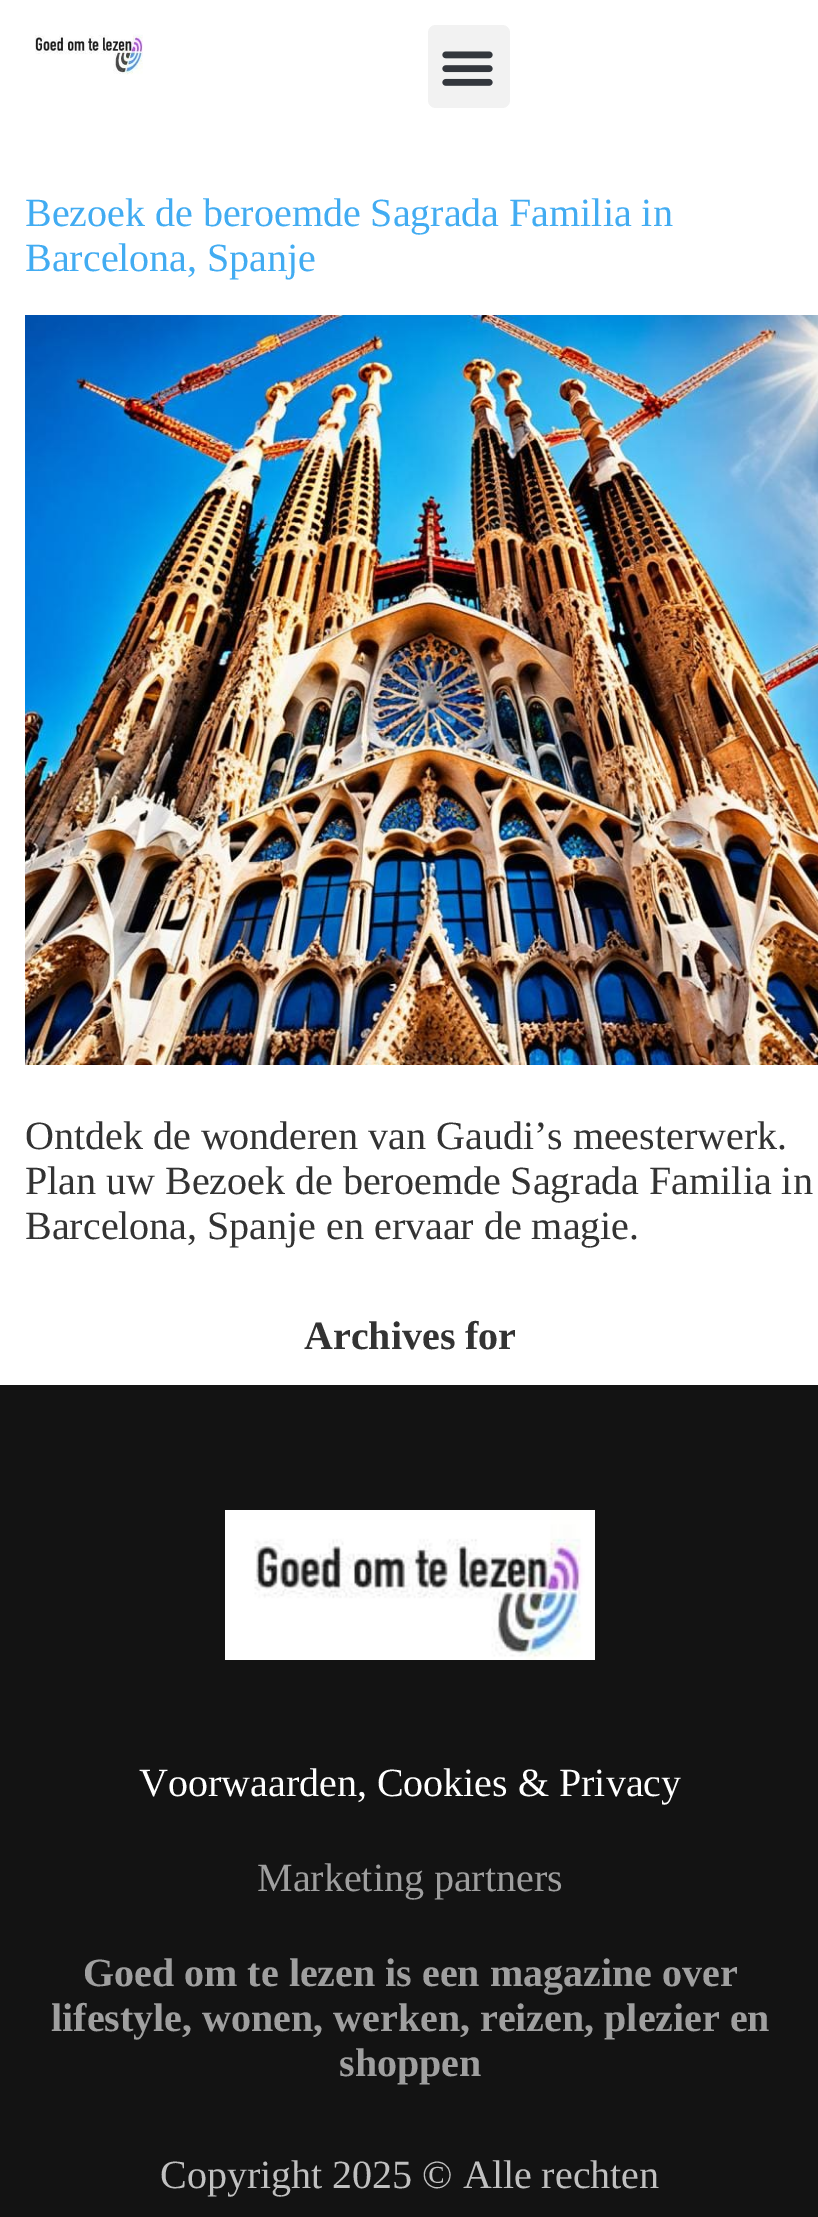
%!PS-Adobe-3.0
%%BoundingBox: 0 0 818 2217
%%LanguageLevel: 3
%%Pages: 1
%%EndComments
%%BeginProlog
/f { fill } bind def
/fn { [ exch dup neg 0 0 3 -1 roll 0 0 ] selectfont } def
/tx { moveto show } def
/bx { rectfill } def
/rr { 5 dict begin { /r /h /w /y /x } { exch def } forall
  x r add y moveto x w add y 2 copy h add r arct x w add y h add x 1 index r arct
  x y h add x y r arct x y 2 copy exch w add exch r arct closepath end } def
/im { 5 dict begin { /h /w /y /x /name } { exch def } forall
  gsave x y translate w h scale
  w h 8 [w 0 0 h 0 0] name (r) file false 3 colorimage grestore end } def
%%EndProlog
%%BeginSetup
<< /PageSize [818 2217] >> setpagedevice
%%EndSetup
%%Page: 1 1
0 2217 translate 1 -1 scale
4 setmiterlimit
1 setgray
0 0 818 2217 bx
(image0.raw) 35 34 108 41 im
0.949 setgray
428 25 82 83 8 rr f
(image1.raw) 442 51 51 35 im
/LiberationSerif-Regular 40 fn
0.259 0.675 0.949 setrgbcolor
(Bezoek de beroemde Sagrada Familia in) 25 226 tx
(Barcelona, Spanje) 25 271 tx
(image2.raw) 25 315 793 750 im
0.2 setgray
(Ontdek de wonderen van Gaudi’s meesterwerk.) 25 1149 tx
(Plan uw Bezoek de beroemde Sagrada Familia in) 25 1194 tx
(Barcelona, Spanje en ervaar de magie.) 25 1239 tx
/LiberationSerif-Bold 40 fn
(Archives for) 304 1349 tx
0.075 setgray
0 1385 818 832 bx
(image3.raw) 225 1510 370 150 im
/LiberationSerif-Regular 40 fn
1 setgray
(Voorwaarden, Cookies & Privacy) 139 1796 tx
0.624 setgray
(Marketing partners) 257 1891 tx
/LiberationSerif-Bold 40 fn
(Goed om te lezen is een magazine over) 83 1986 tx
(lifestyle, wonen, werken, reizen, plezier en) 51 2031 tx
(shoppen) 339 2076 tx
/LiberationSerif-Regular 40 fn
0.753 setgray
(Copyright 2025 © Alle rechten) 160 2188 tx
showpage
%%EOF
